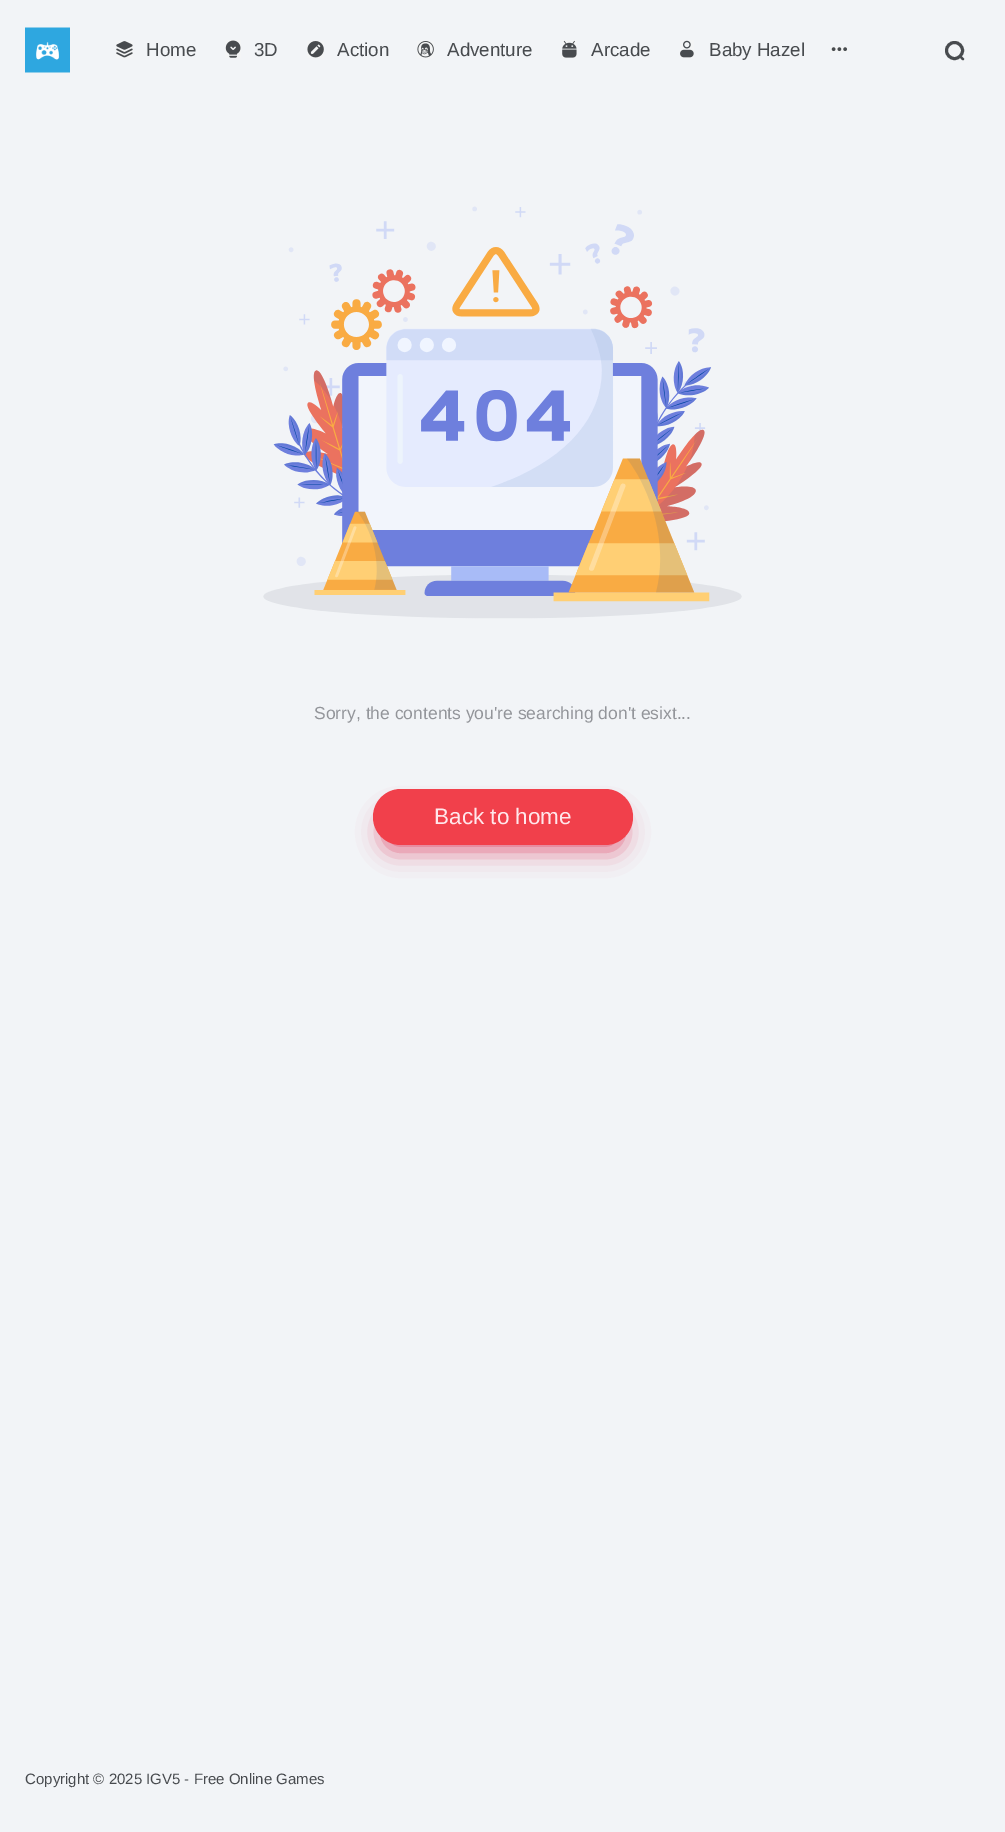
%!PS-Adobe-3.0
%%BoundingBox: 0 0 1005 1832
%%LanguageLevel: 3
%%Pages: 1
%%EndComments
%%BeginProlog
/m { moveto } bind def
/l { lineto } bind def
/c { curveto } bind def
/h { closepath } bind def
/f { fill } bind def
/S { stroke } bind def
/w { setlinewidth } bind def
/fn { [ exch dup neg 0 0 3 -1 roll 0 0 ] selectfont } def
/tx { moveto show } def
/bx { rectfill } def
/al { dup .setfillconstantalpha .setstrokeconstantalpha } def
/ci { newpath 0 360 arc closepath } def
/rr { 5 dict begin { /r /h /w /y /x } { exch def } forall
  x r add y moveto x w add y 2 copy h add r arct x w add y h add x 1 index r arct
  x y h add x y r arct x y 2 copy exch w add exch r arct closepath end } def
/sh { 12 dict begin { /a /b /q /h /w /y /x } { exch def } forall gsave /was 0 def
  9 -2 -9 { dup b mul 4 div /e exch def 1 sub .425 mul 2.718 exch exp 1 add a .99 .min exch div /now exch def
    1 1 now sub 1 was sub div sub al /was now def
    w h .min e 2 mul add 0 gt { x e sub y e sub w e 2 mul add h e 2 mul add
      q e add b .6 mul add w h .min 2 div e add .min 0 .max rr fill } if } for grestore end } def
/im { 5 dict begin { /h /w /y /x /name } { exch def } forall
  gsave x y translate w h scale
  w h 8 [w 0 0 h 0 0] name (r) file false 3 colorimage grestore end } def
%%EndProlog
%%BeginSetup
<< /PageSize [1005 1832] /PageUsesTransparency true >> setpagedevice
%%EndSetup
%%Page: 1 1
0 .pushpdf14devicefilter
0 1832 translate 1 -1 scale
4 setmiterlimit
0.949 0.957 0.969 setrgbcolor
0 0 1005 1832 bx
(image0.raw) 25 27 45 46 im
(image1.raw) 116 41 17 17 im
/LiberationSans-Regular 18.75 fn
0.282 0.294 0.31 setrgbcolor
(Home) 146 56 tx
(image2.raw) 225 40 16 18 im
(3D) 254 56 tx
(image3.raw) 307 41 17 17 im
(Action) 337 56 tx
(image4.raw) 417 41 17 17 im
(Adventure) 447 56 tx
(image5.raw) 562 40 15 18 im
(Arcade) 591 56 tx
(image6.raw) 680 40 14 18 im
(Baby Hazel) 709 56 tx
(image7.raw) 831 47 17 5 im
3 w
954.5 50.5 8 ci S
962 56.5 m 964 58.5 l 964.5 60.5 962.5 60.5 961.5 59.5 c 960 57.5 l 959.5 56.5 961 55.5 962 56.5 c h f
(image8.raw) 263 206 479 413 im
/LiberationSans-Regular 17.5 fn
0.576 0.584 0.604 setrgbcolor
(Sorry, the contents you're searching don't esixt...) 314 719 tx
0.859 0.122 0.259 setrgbcolor
383 814 240 36 18 12.5 0.7 sh
0.945 0.251 0.294 setrgbcolor
373 789 260 56 28 rr f
/LiberationSans-Regular 22.5 fn
1 0.906 0.922 setrgbcolor
(Back to home) 434 824 tx
/LiberationSans-Regular 15 fn
0.282 0.294 0.31 setrgbcolor
(Copyright © 2025 IGV5 - Free Online Games) 25 1784 tx
.poppdf14devicefilter showpage
%%EOF
